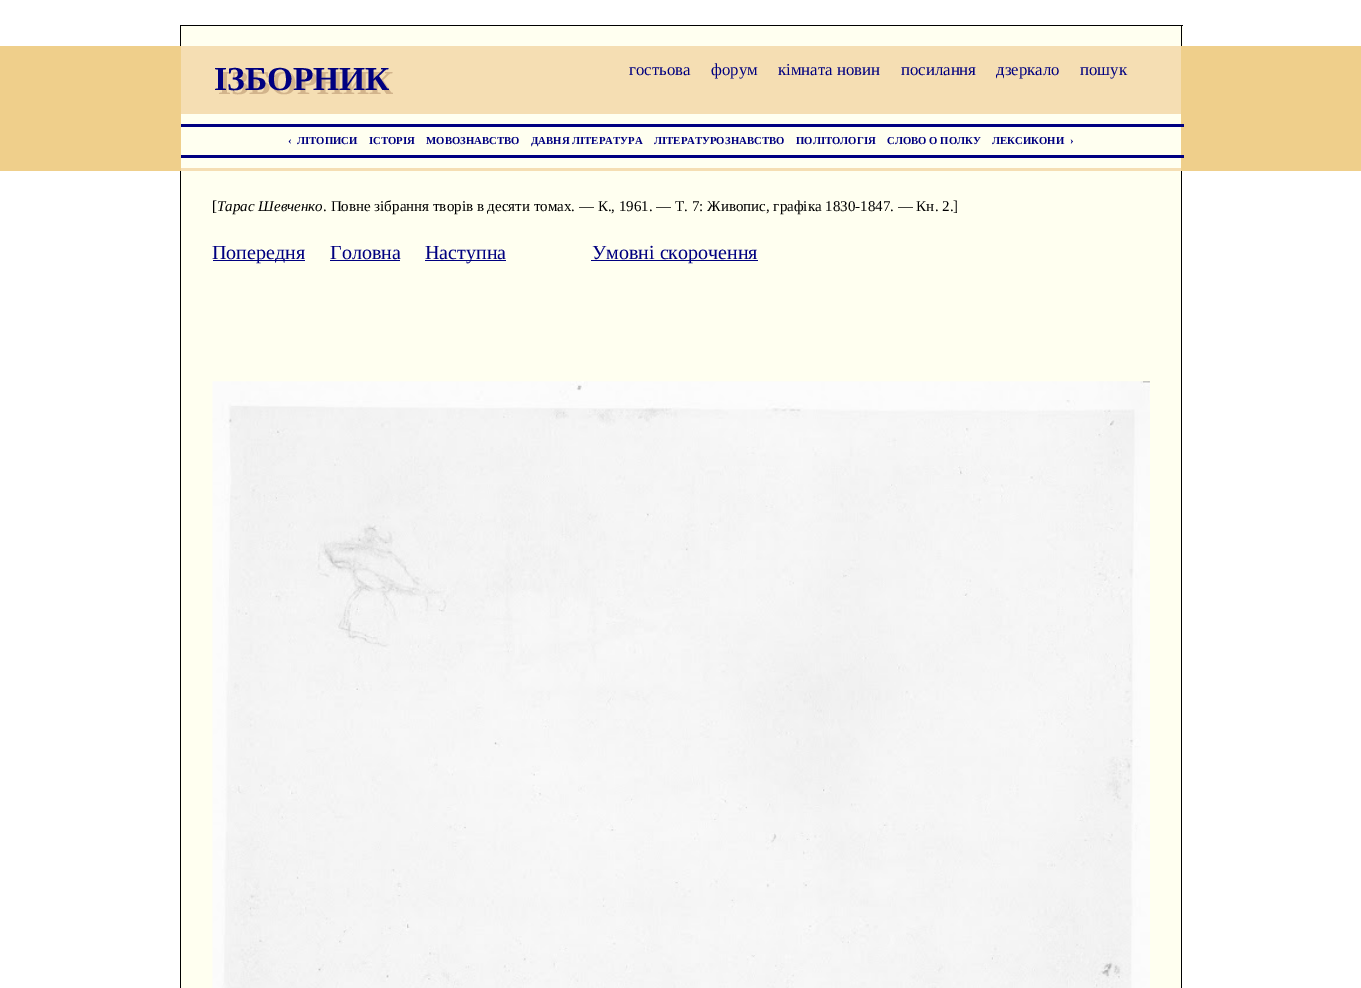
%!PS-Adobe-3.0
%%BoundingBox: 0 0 1361 988
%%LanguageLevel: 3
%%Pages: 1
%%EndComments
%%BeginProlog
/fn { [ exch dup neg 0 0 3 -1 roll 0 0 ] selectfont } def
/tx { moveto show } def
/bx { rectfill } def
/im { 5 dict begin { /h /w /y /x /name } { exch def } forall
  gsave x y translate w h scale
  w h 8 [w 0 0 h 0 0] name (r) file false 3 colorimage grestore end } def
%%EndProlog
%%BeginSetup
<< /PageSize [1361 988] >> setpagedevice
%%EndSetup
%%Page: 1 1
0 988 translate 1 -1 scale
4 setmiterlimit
1 setgray
0 0 1361 988 bx
1 1 0.941 setrgbcolor
181 26 1002 20 bx
0 setgray
180 25 1003 1 bx
1181 25 1 21 bx
180 25 1 21 bx
0.937 0.812 0.545 setrgbcolor
0 46 1361 125 bx
0.961 0.871 0.702 setrgbcolor
181 46 1000 125 bx
/LiberationSerif-Bold 33.5 fn
0.824 0.706 0.549 setrgbcolor
(ІЗБОРНИК) 218 94 tx
0 0 0.502 setrgbcolor
(ІЗБОРНИК) 214 90 tx
/LiberationSerif-Regular 16.75 fn
(гостьова) 629 75 tx
(форум) 711 75 tx
(кімната новин) 778 75 tx
(посилання) 901 75 tx
(дзеркало) 996 75 tx
(пошук) 1080 75 tx
1 1 0.941 setrgbcolor
181 114 1000 54 bx
0 0 0.502 setrgbcolor
181 124 1003 3 bx
/LiberationSerif-Bold 10.75 fn
(‹) 288 144 tx
(ЛІТОПИСИ) 297 144 tx
(ІСТОРІЯ) 369 144 tx
(МОВОЗНАВСТВО) 426 144 tx
(ДАВНЯ ЛІТЕРАТУРА) 531 144 tx
(ЛІТЕРАТУРОЗНАВСТВО) 654 144 tx
(ПОЛІТОЛОГІЯ) 796 144 tx
(СЛОВО О ПОЛКУ) 887 144 tx
(ЛЕКСИКОНИ) 992 144 tx
(›) 1070 144 tx
181 155 1003 3 bx
1 1 0.941 setrgbcolor
181 171 1000 817 bx
0 setgray
1181 171 1 817 bx
180 171 1 817 bx
/LiberationSerif-Regular 15 fn
([) 212 211 tx
/LiberationSerif-Italic 15 fn
(Тарас Шевченко) 217 211 tx
/LiberationSerif-Regular 15 fn
(. Повне зібрання творів в десяти томах. — К., 1961. — Т. 7: Живопис, графіка 1830-1847. — Кн. 2.]) 323 211 tx
0 0 0.502 setrgbcolor
213 260 92 1 bx
/LiberationSerif-Regular 20 fn
(Попередня) 212 259 tx
(Головна) 330 259 tx
330 260 70 1 bx
425 260 81 1 bx
(Наступна) 425 259 tx
591 260 167 1 bx
(Умовні скорочення) 592 259 tx
(image0.raw) 212 381 938 607 im
showpage
%%EOF
